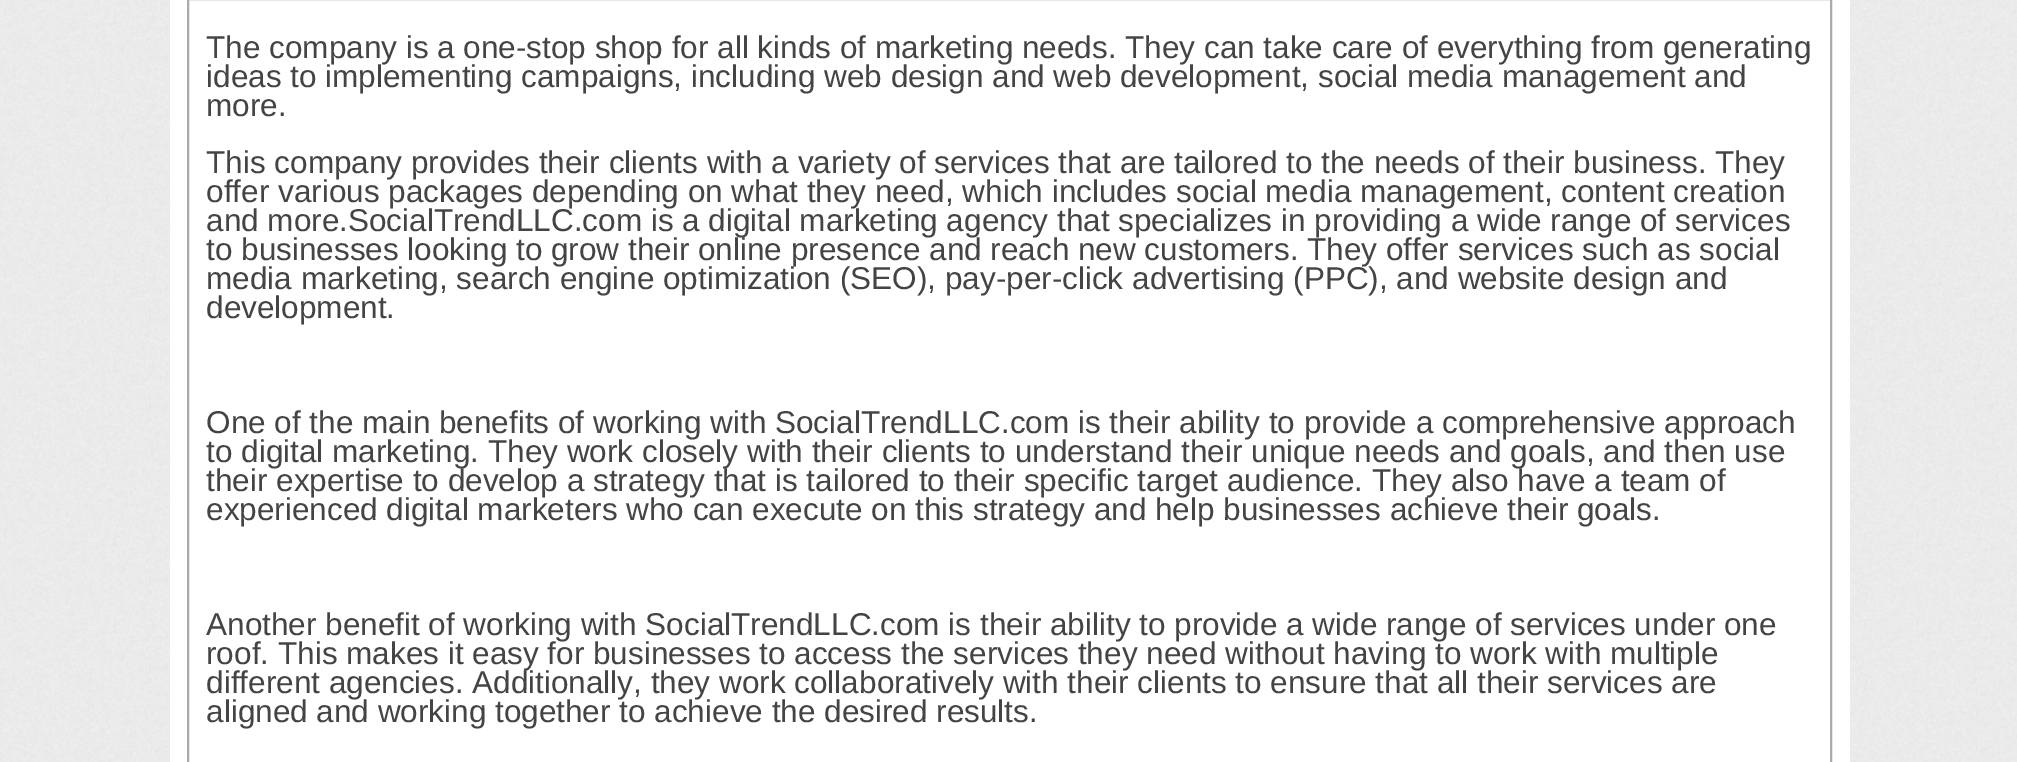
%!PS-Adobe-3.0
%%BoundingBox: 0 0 2017 762
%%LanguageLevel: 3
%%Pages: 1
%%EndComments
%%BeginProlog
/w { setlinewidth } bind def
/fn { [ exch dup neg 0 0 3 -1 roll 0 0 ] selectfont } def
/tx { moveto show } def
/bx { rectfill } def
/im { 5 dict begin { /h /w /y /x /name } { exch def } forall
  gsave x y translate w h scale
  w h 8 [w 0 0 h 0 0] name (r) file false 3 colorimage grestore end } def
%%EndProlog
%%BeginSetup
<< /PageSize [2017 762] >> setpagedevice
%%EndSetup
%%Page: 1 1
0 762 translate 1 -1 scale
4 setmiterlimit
1 setgray
0 0 2017 762 bx
(image0.raw) 0 0 2017 762 im
170 0 1680 762 bx
0.667 setgray
2 w
188 -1 1643 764 rectstroke
/LiberationSans-Regular 31.5 fn
0.267 setgray
(The company is a one-stop shop for all kinds of marketing needs. They can take care of everything from generating) 206 58 tx
(ideas to implementing campaigns, including web design and web development, social media management and) 206 87 tx
(more.) 206 116 tx
(This company provides their clients with a variety of services that are tailored to the needs of their business. They) 206 173 tx
(offer various packages depending on what they need, which includes social media management, content creation) 206 202 tx
(and more.SocialTrendLLC.com is a digital marketing agency that specializes in providing a wide range of services) 206 231 tx
(to businesses looking to grow their online presence and reach new customers. They offer services such as social) 206 260 tx
(media marketing, search engine optimization \(SEO\), pay-per-click advertising \(PPC\), and website design and) 206 289 tx
(development.) 206 318 tx
(One of the main benefits of working with SocialTrendLLC.com is their ability to provide a comprehensive approach) 206 433 tx
(to digital marketing. They work closely with their clients to understand their unique needs and goals, and then use) 206 462 tx
(their expertise to develop a strategy that is tailored to their specific target audience. They also have a team of) 206 491 tx
(experienced digital marketers who can execute on this strategy and help businesses achieve their goals.) 206 520 tx
(Another benefit of working with SocialTrendLLC.com is their ability to provide a wide range of services under one) 206 635 tx
(roof. This makes it easy for businesses to access the services they need without having to work with multiple) 206 664 tx
(different agencies. Additionally, they work collaboratively with their clients to ensure that all their services are) 206 693 tx
(aligned and working together to achieve the desired results.) 206 722 tx
showpage
%%EOF
